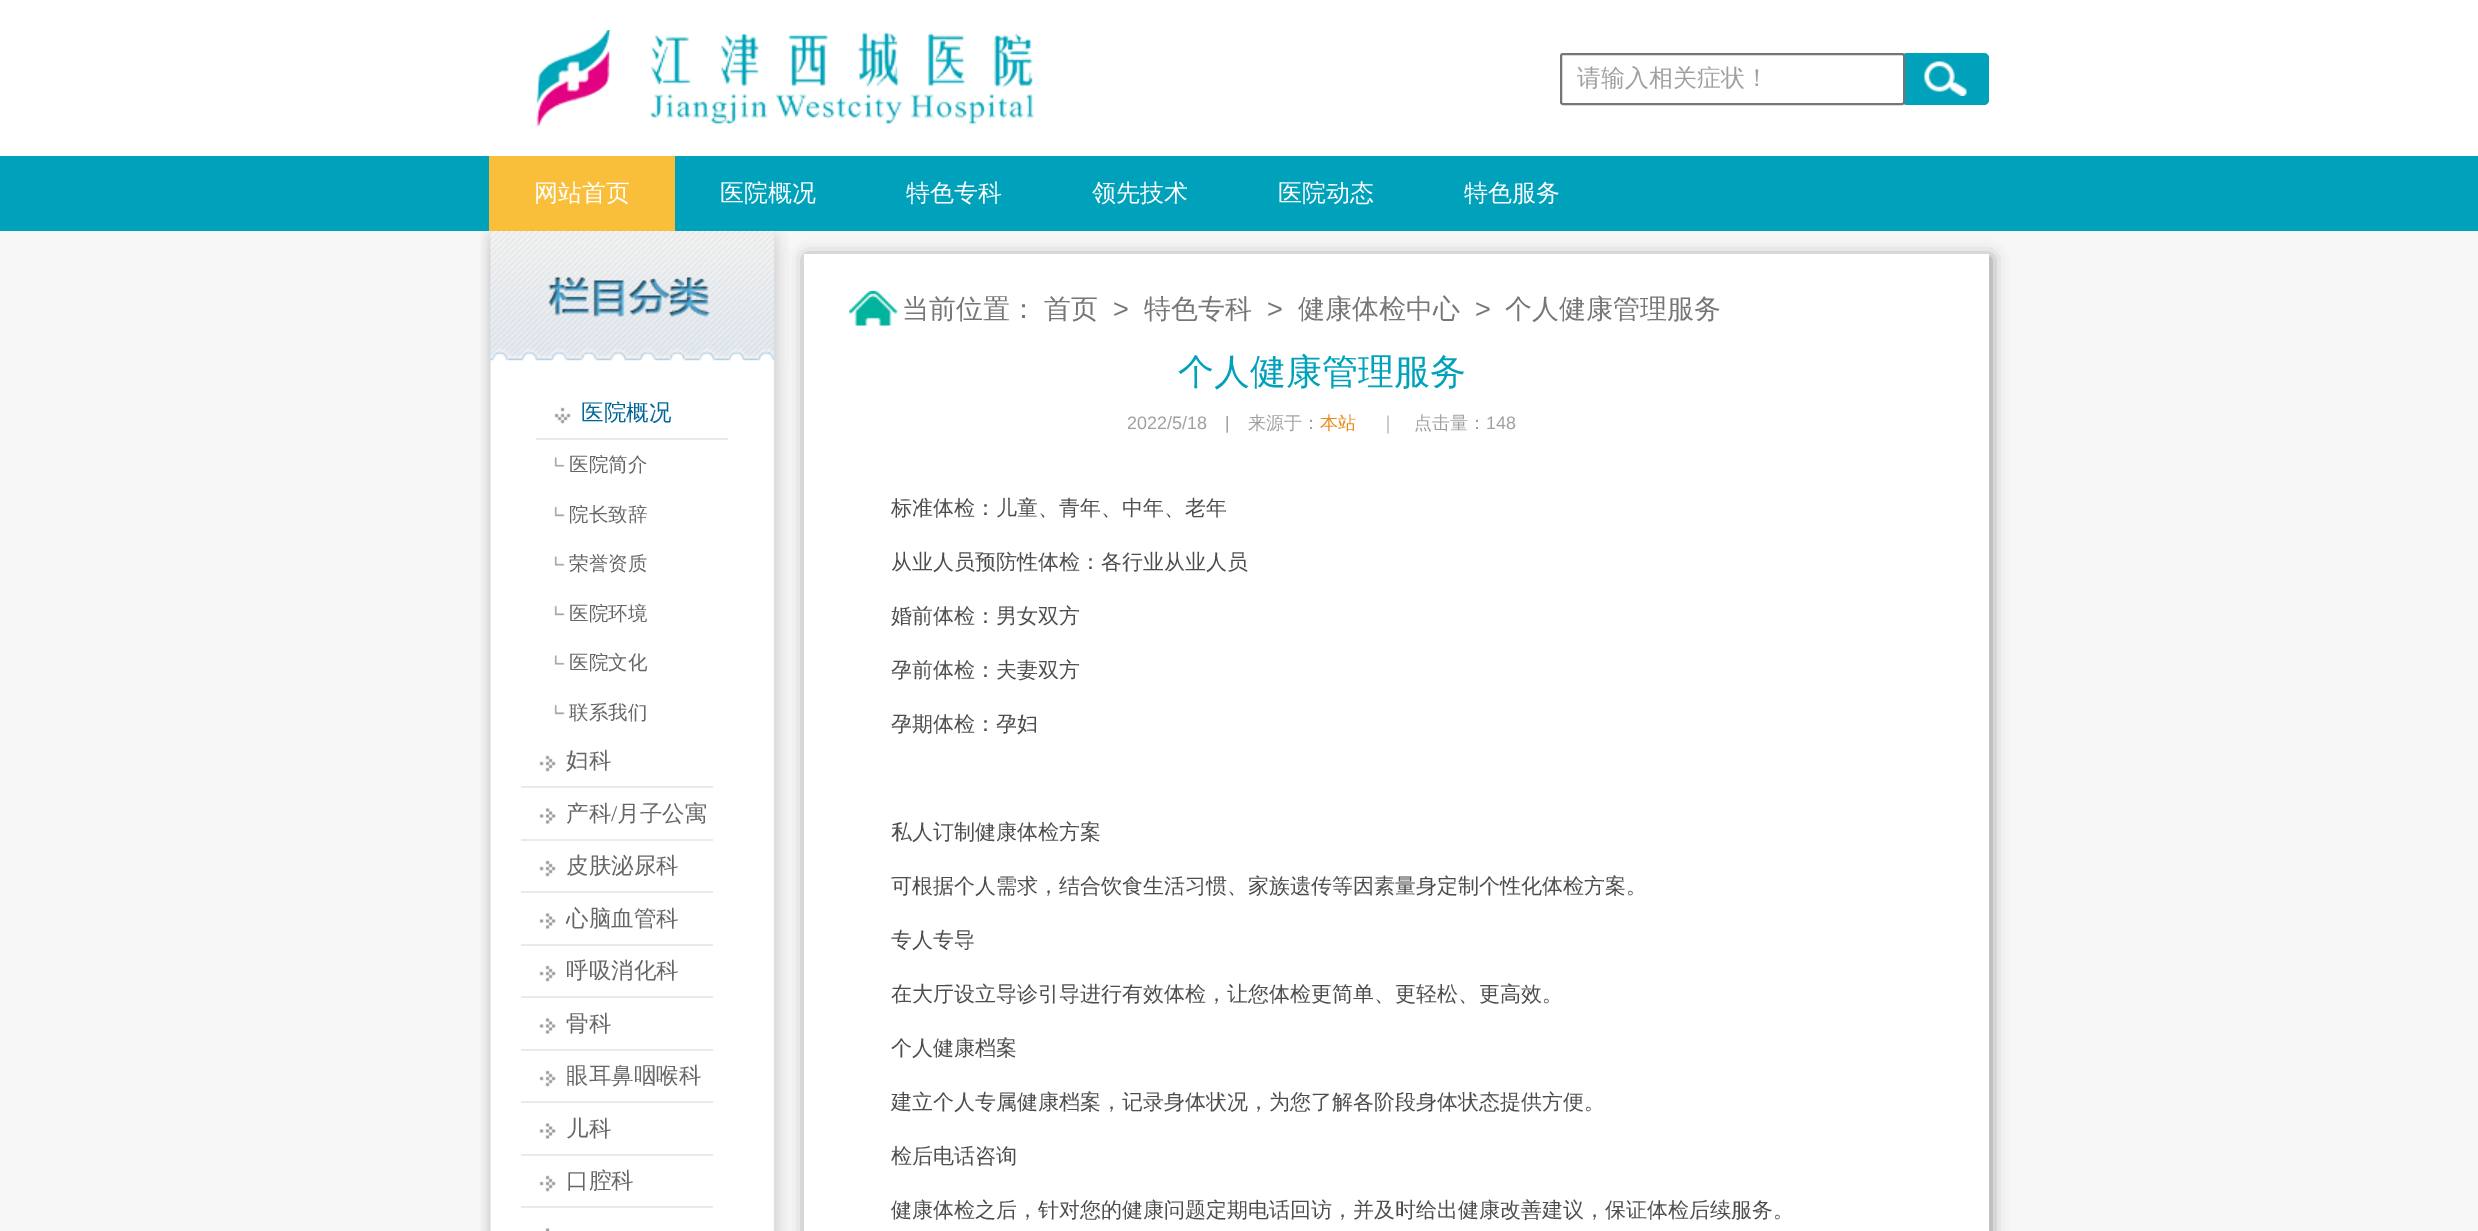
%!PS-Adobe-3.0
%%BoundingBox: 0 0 2478 1231
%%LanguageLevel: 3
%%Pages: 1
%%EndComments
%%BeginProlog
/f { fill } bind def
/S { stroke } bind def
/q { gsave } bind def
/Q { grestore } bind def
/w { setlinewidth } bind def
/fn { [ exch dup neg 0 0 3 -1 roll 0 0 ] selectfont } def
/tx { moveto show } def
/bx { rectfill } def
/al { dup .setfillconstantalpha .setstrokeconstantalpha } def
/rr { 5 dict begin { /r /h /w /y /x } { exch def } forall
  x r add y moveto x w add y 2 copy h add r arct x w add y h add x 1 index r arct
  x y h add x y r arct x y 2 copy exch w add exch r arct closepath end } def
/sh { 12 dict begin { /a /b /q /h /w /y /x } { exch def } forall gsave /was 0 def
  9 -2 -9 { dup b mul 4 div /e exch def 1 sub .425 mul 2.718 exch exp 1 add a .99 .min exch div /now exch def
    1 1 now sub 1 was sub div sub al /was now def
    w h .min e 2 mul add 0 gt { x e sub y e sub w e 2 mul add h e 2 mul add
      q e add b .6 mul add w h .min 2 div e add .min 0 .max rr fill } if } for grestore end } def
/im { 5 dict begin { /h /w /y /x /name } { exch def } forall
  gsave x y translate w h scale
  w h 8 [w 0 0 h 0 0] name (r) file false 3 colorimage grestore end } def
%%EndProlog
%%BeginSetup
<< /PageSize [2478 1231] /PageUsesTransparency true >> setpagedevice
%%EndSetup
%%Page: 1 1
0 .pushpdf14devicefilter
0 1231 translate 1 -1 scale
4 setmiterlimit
0.969 setgray
0 0 2478 1231 bx
1 setgray
0 0 2478 156 bx
(image0.raw) 536 30 498 96 im
0 0.631 0.729 setrgbcolor
1902 53 87 52 5 rr f
1 setgray
1561 54 343 50 2 rr q f Q
0.463 setgray
2 w
S
/WenQuanYiZenHei-Medium 24 fn
0.627 setgray
(请输入相关症状！) 1577 86 tx
(image1.raw) 1924 61 43 35 im
0 0.631 0.729 setrgbcolor
0 156 2478 75 bx
0.976 0.749 0.231 setrgbcolor
489 156 186 75 bx
1 setgray
(网站首页) 534 201 tx
(医院概况) 720 201 tx
(特色专科) 906 201 tx
(领先技术) 1092 201 tx
(医院动态) 1278 201 tx
(特色服务) 1464 201 tx
(image2.raw) 480 231 309 135 im
(image3.raw) 480 366 308 865 im
(image4.raw) 554 407 17 17 im
0.918 setgray
536 438 192 2 bx
/WenQuanYiZenHei-Medium 22.5 fn
0.004 0.396 0.592 setrgbcolor
(医院概况) 581 420 tx
(image5.raw) 554 457 11 10 im
/WenQuanYiZenHei-Medium 19.5 fn
0.4 setgray
(医院简介) 569 471 tx
(image6.raw) 554 506 11 11 im
(院长致辞) 569 521 tx
(image5.raw) 554 556 11 10 im
(荣誉资质) 569 570 tx
(image6.raw) 554 605 11 11 im
(医院环境) 569 620 tx
(image5.raw) 554 655 11 10 im
(医院文化) 569 669 tx
(image6.raw) 554 704 11 11 im
(联系我们) 569 719 tx
(image7.raw) 539 755 17 17 im
0.918 setgray
521 786 192 2 bx
/WenQuanYiZenHei-Medium 22.5 fn
0.4 setgray
(妇科) 566 768 tx
(image8.raw) 539 808 17 16 im
0.918 setgray
521 839 192 2 bx
0.4 setgray
(产科) 566 821 tx
/LiberationSerif-Regular 22.5 fn
(/) 611 821 tx
/WenQuanYiZenHei-Medium 22.5 fn
(月子公寓) 617 821 tx
(image7.raw) 539 860 17 17 im
0.918 setgray
521 891 192 2 bx
0.4 setgray
(皮肤泌尿科) 566 873 tx
(image8.raw) 539 913 17 16 im
0.918 setgray
521 944 192 2 bx
0.4 setgray
(心脑血管科) 566 926 tx
(image7.raw) 539 965 17 17 im
0.918 setgray
521 996 192 2 bx
0.4 setgray
(呼吸消化科) 566 978 tx
(image8.raw) 539 1018 17 16 im
0.918 setgray
521 1049 192 2 bx
0.4 setgray
(骨科) 566 1031 tx
(image7.raw) 539 1070 17 17 im
0.918 setgray
521 1101 192 2 bx
0.4 setgray
(眼耳鼻咽喉科) 566 1083 tx
(image8.raw) 539 1123 17 16 im
0.918 setgray
521 1154 192 2 bx
0.4 setgray
(儿科) 566 1136 tx
(image7.raw) 539 1175 17 17 im
0.918 setgray
521 1206 192 2 bx
0.4 setgray
(口腔科) 566 1188 tx
(image9.raw) 545 1228 5 3 im
0.533 setgray
806 257 1185 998 0 8 1 sh
1 setgray
804 254 1185 977 bx
(image10.raw) 849 291 49 35 im
/WenQuanYiZenHei-Medium 27 fn
0.467 0.463 0.463 setrgbcolor
(当前位置：) 902 318 tx
(首页) 1044 318 tx
/LiberationSans-Regular 27 fn
(>) 1113 318 tx
/WenQuanYiZenHei-Medium 27 fn
(特色专科) 1144 318 tx
/LiberationSans-Regular 27 fn
(>) 1267 318 tx
/WenQuanYiZenHei-Medium 27 fn
(健康体检中心) 1298 318 tx
/LiberationSans-Regular 27 fn
(>) 1475 318 tx
/WenQuanYiZenHei-Medium 27 fn
(个人健康管理服务) 1505 318 tx
/WenQuanYiZenHei-Medium 36 fn
0 0.631 0.729 setrgbcolor
(个人健康管理服务) 1178 384 tx
/LiberationSans-Regular 18 fn
0.627 setgray
(2022/5/18) 1127 429 tx
(|) 1225 429 tx
/WenQuanYiZenHei-Medium 18 fn
(来源于：) 1248 429 tx
0.91 0.537 0.106 setrgbcolor
(本站) 1320 429 tx
0.627 setgray
(｜) 1379 429 tx
(点击量：) 1414 429 tx
/LiberationSans-Regular 18 fn
(148) 1486 429 tx
/WenQuanYiZenHei-Medium 21 fn
0.302 setgray
(标准体检：儿童、青年、中年、老年) 891 515 tx
(从业人员预防性体检：各行业从业人员) 891 569 tx
(婚前体检：男女双方) 891 623 tx
(孕前体检：夫妻双方) 891 677 tx
(孕期体检：孕妇) 891 731 tx
(私人订制健康体检方案) 891 839 tx
(可根据个人需求，结合饮食生活习惯、家族遗传等因素量身定制个性化体检方案。) 891 893 tx
(专人专导) 891 947 tx
(在大厅设立导诊引导进行有效体检，让您体检更简单、更轻松、更高效。) 891 1001 tx
(个人健康档案) 891 1055 tx
(建立个人专属健康档案，记录身体状况，为您了解各阶段身体状态提供方便。) 891 1109 tx
(检后电话咨询) 891 1163 tx
(健康体检之后，针对您的健康问题定期电话回访，并及时给出健康改善建议，保证体检后续服务。) 891 1217 tx
.poppdf14devicefilter showpage
%%EOF
